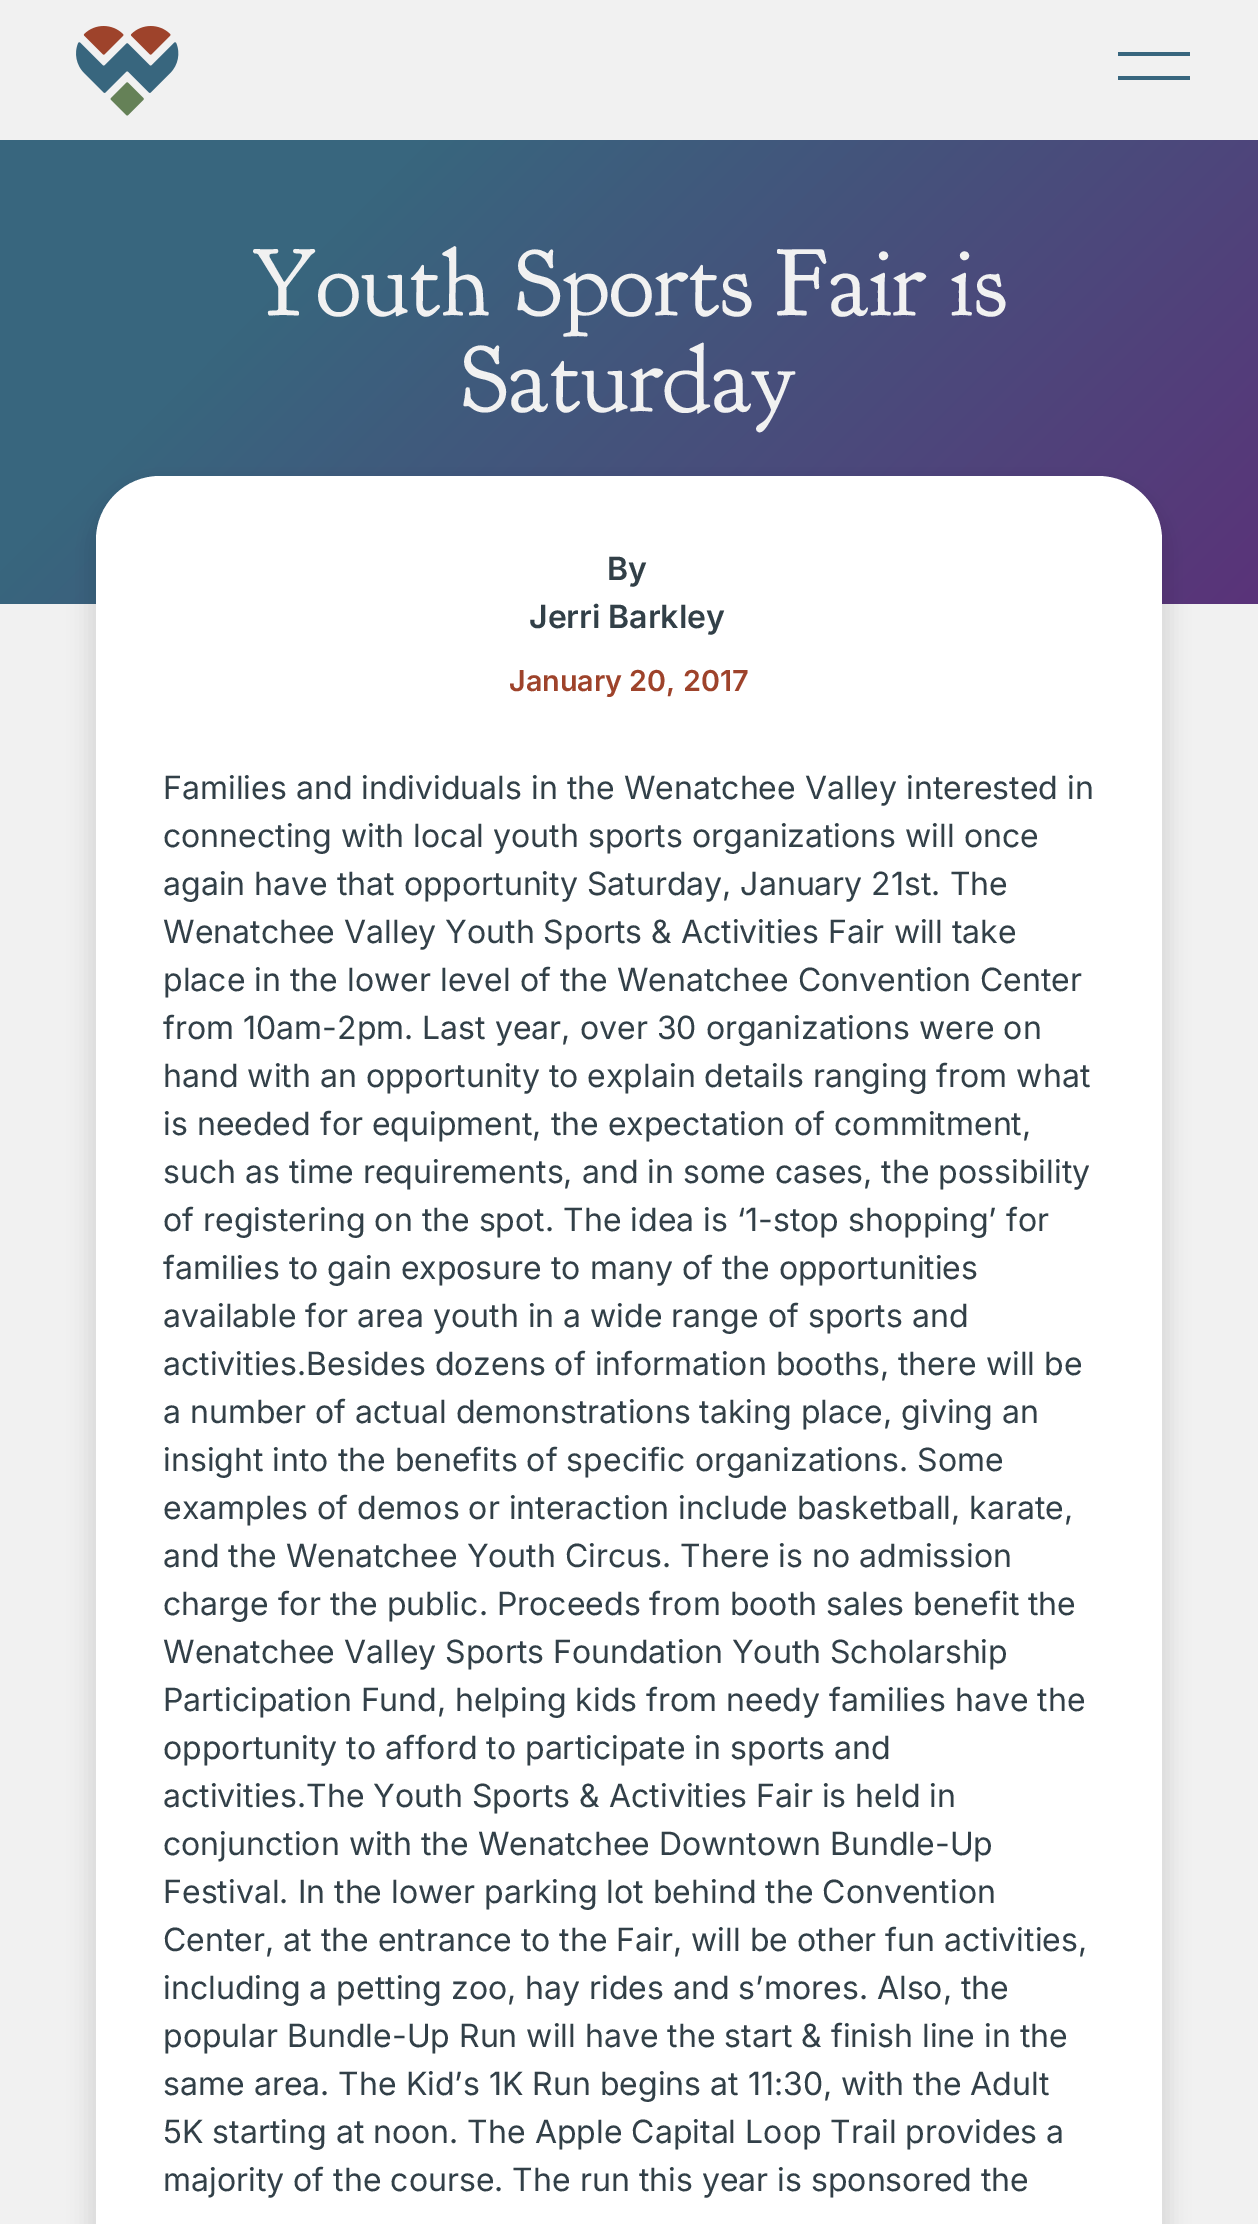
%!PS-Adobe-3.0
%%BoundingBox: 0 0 1258 2224
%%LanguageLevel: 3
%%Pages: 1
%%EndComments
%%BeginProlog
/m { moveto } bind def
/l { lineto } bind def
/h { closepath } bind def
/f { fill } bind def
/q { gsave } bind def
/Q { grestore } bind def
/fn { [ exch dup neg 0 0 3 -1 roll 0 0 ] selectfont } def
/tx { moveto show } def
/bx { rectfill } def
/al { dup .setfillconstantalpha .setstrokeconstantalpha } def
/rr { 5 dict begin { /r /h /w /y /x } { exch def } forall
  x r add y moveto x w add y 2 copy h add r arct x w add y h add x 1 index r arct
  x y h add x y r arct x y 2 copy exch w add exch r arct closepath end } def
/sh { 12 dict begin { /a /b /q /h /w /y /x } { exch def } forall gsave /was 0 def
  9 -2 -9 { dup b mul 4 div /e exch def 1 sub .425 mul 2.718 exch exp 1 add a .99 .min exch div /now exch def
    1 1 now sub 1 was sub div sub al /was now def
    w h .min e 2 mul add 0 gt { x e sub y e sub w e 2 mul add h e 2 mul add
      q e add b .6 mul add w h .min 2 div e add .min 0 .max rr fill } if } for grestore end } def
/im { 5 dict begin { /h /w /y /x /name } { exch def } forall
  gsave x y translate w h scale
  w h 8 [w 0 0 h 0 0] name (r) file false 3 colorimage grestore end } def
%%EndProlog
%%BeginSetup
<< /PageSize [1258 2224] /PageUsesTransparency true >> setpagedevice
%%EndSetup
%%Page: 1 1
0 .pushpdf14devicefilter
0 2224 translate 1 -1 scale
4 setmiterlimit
0.945 setgray
0 0 1258 2224 bx
(image0.raw) 76 26 103 90 im
0.22 0.4 0.494 setrgbcolor
1118 52 72 4 bx
1118 76 72 4 bx
q 0 140 m 1258 140 l 1258 604 l 0 604 l h clip newpath
<< /ShadingType 2 /ColorSpace /DeviceRGB /Coords [1060 802 198 -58] /Extend [true true] /Function << /FunctionType 3 /Domain [0 1] /Functions [<< /FunctionType 2 /Domain [0 1] /C0 [0.353 0.2 0.475] /C1 [0.22 0.4 0.494] /N 1 >> << /FunctionType 2 /Domain [0 1] /C0 [0.22 0.4 0.494] /C1 [0.22 0.4 0.494] /N 1 >>] /Bounds [0.75] /Encode [0 1 0 1] >> >> shfill Q
/GoudyBookletter1911-Regular 96 fn
0.945 setgray
(Youth Sports Fair is) 252 315 tx
(Saturday) 461 411 tx
0 setgray
86 478 1086 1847 74 9 0.08 sh
1 setgray
96 476 1066 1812 64 rr f
/Inter-SemiBold 32 fn
0.196 0.251 0.282 setrgbcolor
(By) 607 580 tx
(Jerri Barkley) 529 628 tx
/Inter-SemiBold 28.75 fn
0.62 0.263 0.169 setrgbcolor
(January 20, 2017) 509 691 tx
/Inter-Regular 32 fn
0.196 0.251 0.282 setrgbcolor
(Families and individuals in the Wenatchee Valley interested in) 163 799 tx
(connecting with local youth sports organizations will once) 163 847 tx
(again have that opportunity Saturday, January 21st. The) 163 895 tx
(Wenatchee Valley Youth Sports & Activities Fair will take) 163 943 tx
(place in the lower level of the Wenatchee Convention Center) 163 991 tx
(from 10am-2pm. Last year, over 30 organizations were on) 163 1039 tx
(hand with an opportunity to explain details ranging from what) 163 1087 tx
(is needed for equipment, the expectation of commitment,) 163 1135 tx
(such as time requirements, and in some cases, the possibility) 163 1183 tx
(of registering on the spot. The idea is ‘1-stop shopping’ for) 163 1231 tx
(families to gain exposure to many of the opportunities) 163 1279 tx
(available for area youth in a wide range of sports and) 163 1327 tx
(activities.Besides dozens of information booths, there will be) 163 1375 tx
(a number of actual demonstrations taking place, giving an) 163 1423 tx
(insight into the benefits of specific organizations. Some) 163 1471 tx
(examples of demos or interaction include basketball, karate,) 163 1519 tx
(and the Wenatchee Youth Circus. There is no admission) 163 1567 tx
(charge for the public. Proceeds from booth sales benefit the) 163 1615 tx
(Wenatchee Valley Sports Foundation Youth Scholarship) 163 1663 tx
(Participation Fund, helping kids from needy families have the) 163 1711 tx
(opportunity to afford to participate in sports and) 163 1759 tx
(activities.The Youth Sports & Activities Fair is held in) 163 1807 tx
(conjunction with the Wenatchee Downtown Bundle-Up) 163 1855 tx
(Festival. In the lower parking lot behind the Convention) 163 1903 tx
(Center, at the entrance to the Fair, will be other fun activities,) 163 1951 tx
(including a petting zoo, hay rides and s’mores. Also, the) 163 1999 tx
(popular Bundle-Up Run will have the start & finish line in the) 163 2047 tx
(same area. The Kid’s 1K Run begins at 11:30, with the Adult) 163 2095 tx
(5K starting at noon. The Apple Capital Loop Trail provides a) 163 2143 tx
(majority of the course. The run this year is sponsored the) 163 2191 tx
.poppdf14devicefilter showpage
%%EOF
